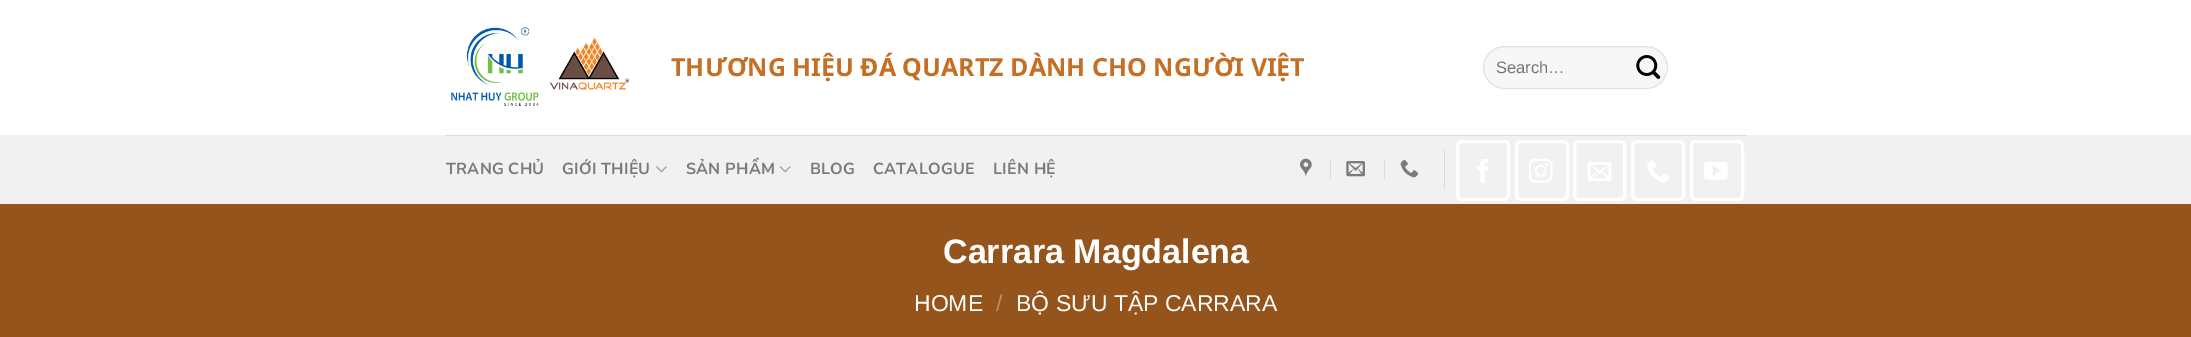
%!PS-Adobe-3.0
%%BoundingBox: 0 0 2191 337
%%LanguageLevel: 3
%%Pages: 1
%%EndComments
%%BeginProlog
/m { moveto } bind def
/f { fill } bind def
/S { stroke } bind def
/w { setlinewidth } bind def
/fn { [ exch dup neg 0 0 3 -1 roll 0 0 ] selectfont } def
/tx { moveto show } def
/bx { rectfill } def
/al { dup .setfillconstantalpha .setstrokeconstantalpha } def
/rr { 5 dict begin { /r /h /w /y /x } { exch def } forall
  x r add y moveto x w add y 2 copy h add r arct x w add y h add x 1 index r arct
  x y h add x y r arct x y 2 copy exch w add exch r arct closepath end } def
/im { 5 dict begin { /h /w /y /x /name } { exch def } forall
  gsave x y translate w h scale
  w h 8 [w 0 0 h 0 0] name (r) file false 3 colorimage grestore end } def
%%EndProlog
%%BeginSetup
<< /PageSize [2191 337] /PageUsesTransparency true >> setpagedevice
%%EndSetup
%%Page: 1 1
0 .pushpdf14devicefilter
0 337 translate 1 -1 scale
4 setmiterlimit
1 setgray
0 0 2191 337 bx
(image0.raw) 451 27 178 80 im
/NotoSans-Bold 25 fn
0.776 0.435 0.141 setrgbcolor
(THƯƠNG HIỆU ĐÁ QUARTZ DÀNH CHO NGƯỜI VIỆT) 671 76 tx
0.969 setgray
1483 46 185 43 21.5 rr f
0.09 al
0 setgray
1483.5 46.5 184 42 21 rr S
/LiberationSans-Regular 16.5 fn
1 al
0.459 setgray
(Search…) 1496 73 tx
(image1.raw) 1636 55 25 24 im
0.945 setgray
0 135 2191 69 bx
0.851 setgray
446 135 1300 1 bx
/Nunito-Bold 16 fn
0.482 setgray
446 174 m 0.25 0 (TRANG CHỦ) ashow
562 174 m 0.25 0 (GIỚI THIỆU) ashow
(image2.raw) 656 166 11 7 im
686 174 m 0.25 0 (SẢN PHẨM) ashow
(image3.raw) 779 166 12 7 im
810 174 m 0.25 0 (BLOG) ashow
873 174 m 0.25 0 (CATALOGUE) ashow
993 174 m 0.25 0 (LIÊN HỆ) ashow
(image4.raw) 1300 158 12 19 im
0.851 setgray
1330 160 1 19 bx
(image5.raw) 1346 161 19 16 im
1384 160 1 19 bx
(image6.raw) 1400 159 19 19 im
1444 150 1 38 bx
1 setgray
3 w
1457.5 141.5 51 58 4.5 rr S
(image7.raw) 1477 159 12 24 im
1516.5 141.5 51 58 4.5 rr S
(image8.raw) 1529 159 24 24 im
1574.5 141.5 50 58 4.5 rr S
(image9.raw) 1587 162 25 19 im
1632.5 141.5 51 58 4.5 rr S
(image10.raw) 1647 160 23 23 im
1691.5 141.5 51 58 4.5 rr S
(image11.raw) 1704 162 24 18 im
0.584 0.329 0.106 setrgbcolor
0 204 2191 133 bx
/LiberationSans-Bold 34 fn
1 setgray
(Carrara Magdalena) 943 263 tx
/LiberationSans-Regular 23 fn
(HOME) 914 311 tx
0.729 0.565 0.42 setrgbcolor
(/) 996 311 tx
1 setgray
(BỘ SƯU TẬP CARRARA) 1016 311 tx
.poppdf14devicefilter showpage
%%EOF
